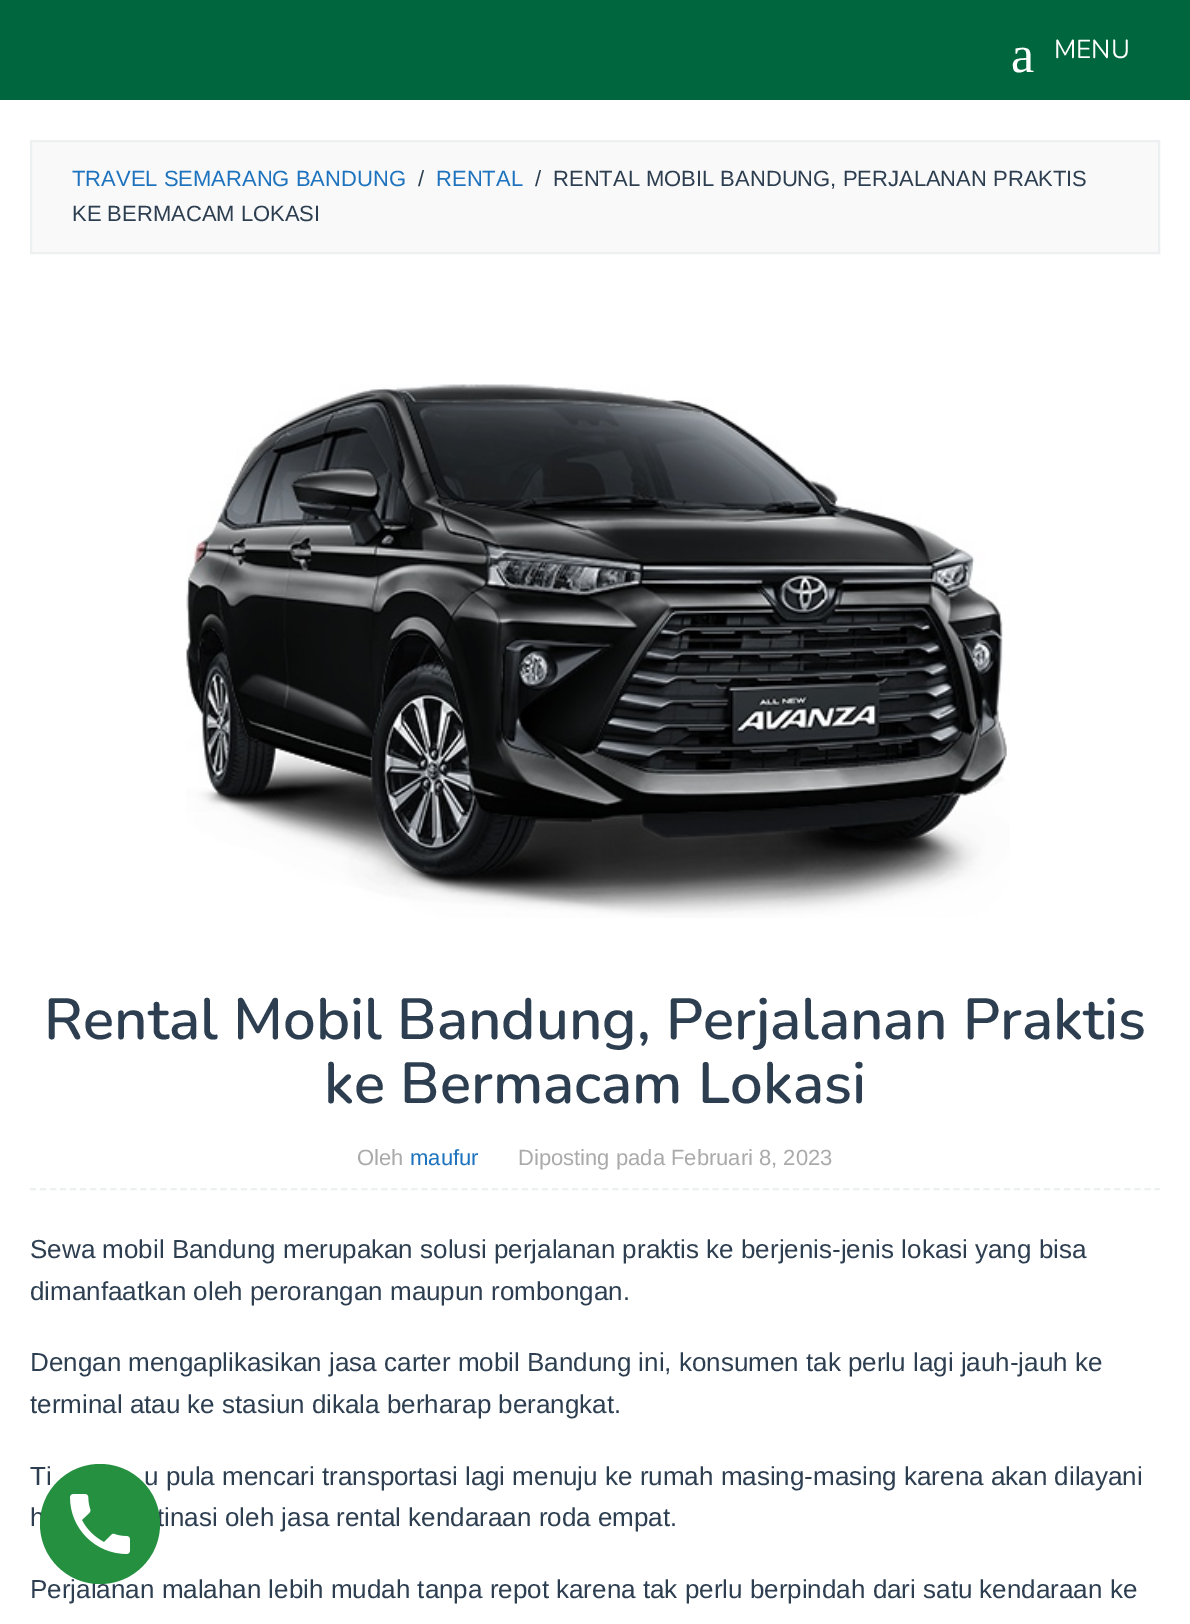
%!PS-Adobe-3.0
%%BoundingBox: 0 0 1190 1624
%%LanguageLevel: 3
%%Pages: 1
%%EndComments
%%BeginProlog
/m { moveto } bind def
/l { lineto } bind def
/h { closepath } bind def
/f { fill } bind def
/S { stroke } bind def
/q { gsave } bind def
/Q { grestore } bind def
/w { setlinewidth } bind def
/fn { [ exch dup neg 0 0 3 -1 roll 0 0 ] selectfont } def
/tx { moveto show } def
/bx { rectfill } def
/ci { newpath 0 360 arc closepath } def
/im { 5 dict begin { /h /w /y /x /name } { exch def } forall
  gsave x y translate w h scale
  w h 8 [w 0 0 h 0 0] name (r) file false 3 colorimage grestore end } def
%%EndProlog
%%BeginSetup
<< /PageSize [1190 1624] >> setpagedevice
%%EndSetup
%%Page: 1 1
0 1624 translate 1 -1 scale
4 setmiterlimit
0 0.4 0.239 setrgbcolor
0 0 1190 1624 bx
/LiberationSerif-Regular 52 fn
1 setgray
(a) 1011 72 tx
/Nunito-Regular 26 fn
(MENU) 1054 58 tx
0 100 1190 1524 bx
0.976 setgray
31 141 m 1159 141 l 1159 253 l 31 253 l h q f Q
0.925 0.941 0.945 setrgbcolor
2 w
S
/LiberationSans-Regular 22 fn
0.118 0.451 0.745 setrgbcolor
(TRAVEL SEMARANG BANDUNG) 72 186 tx
0.173 0.243 0.314 setrgbcolor
(/) 418 186 tx
0.118 0.451 0.745 setrgbcolor
(RENTAL) 436 186 tx
0.173 0.243 0.314 setrgbcolor
(/) 535 186 tx
(RENTAL MOBIL BANDUNG, PERJALANAN PRAKTIS) 553 186 tx
(KE BERMACAM LOKASI) 72 221 tx
(image0.raw) 186 384 824 534 im
0.925 0.941 0.945 setrgbcolor
[6 4.04] 0 setdash
30 1189 m 1160 1189 l S
/Nunito-SemiBold 58 fn
0.173 0.243 0.314 setrgbcolor
(Rental Mobil Bandung, Perjalanan Praktis) 44 1039 tx
(ke Bermacam Lokasi) 324 1103 tx
/LiberationSans-Regular 22 fn
0.667 setgray
(Oleh) 357 1165 tx
0.118 0.451 0.745 setrgbcolor
(maufur) 410 1165 tx
0.667 setgray
(Diposting pada Februari 8, 2023) 518 1165 tx
/LiberationSans-Regular 26 fn
0.173 0.243 0.314 setrgbcolor
(Sewa mobil Bandung merupakan solusi perjalanan praktis ke berjenis-jenis lokasi yang bisa) 30 1258 tx
(dimanfaatkan oleh perorangan maupun rombongan.) 30 1300 tx
(Dengan mengaplikasikan jasa carter mobil Bandung ini, konsumen tak perlu lagi jauh-jauh ke) 30 1371 tx
(terminal atau ke stasiun dikala berharap berangkat.) 30 1413 tx
(Ti) 30 1485 tx
(u pula mencari transportasi lagi menuju ke rumah masing-masing karena akan dilayani) 144 1485 tx
(h) 30 1526 tx
(tinasi oleh jasa rental kendaraan roda empat.) 157 1526 tx
(Perjalanan malahan lebih mudah tanpa repot karena tak perlu berpindah dari satu kendaraan ke) 30 1598 tx
0.149 0.565 0.255 setrgbcolor
100 1524 60 ci f
(image1.raw) 70 1494 60 60 im
showpage
%%EOF
